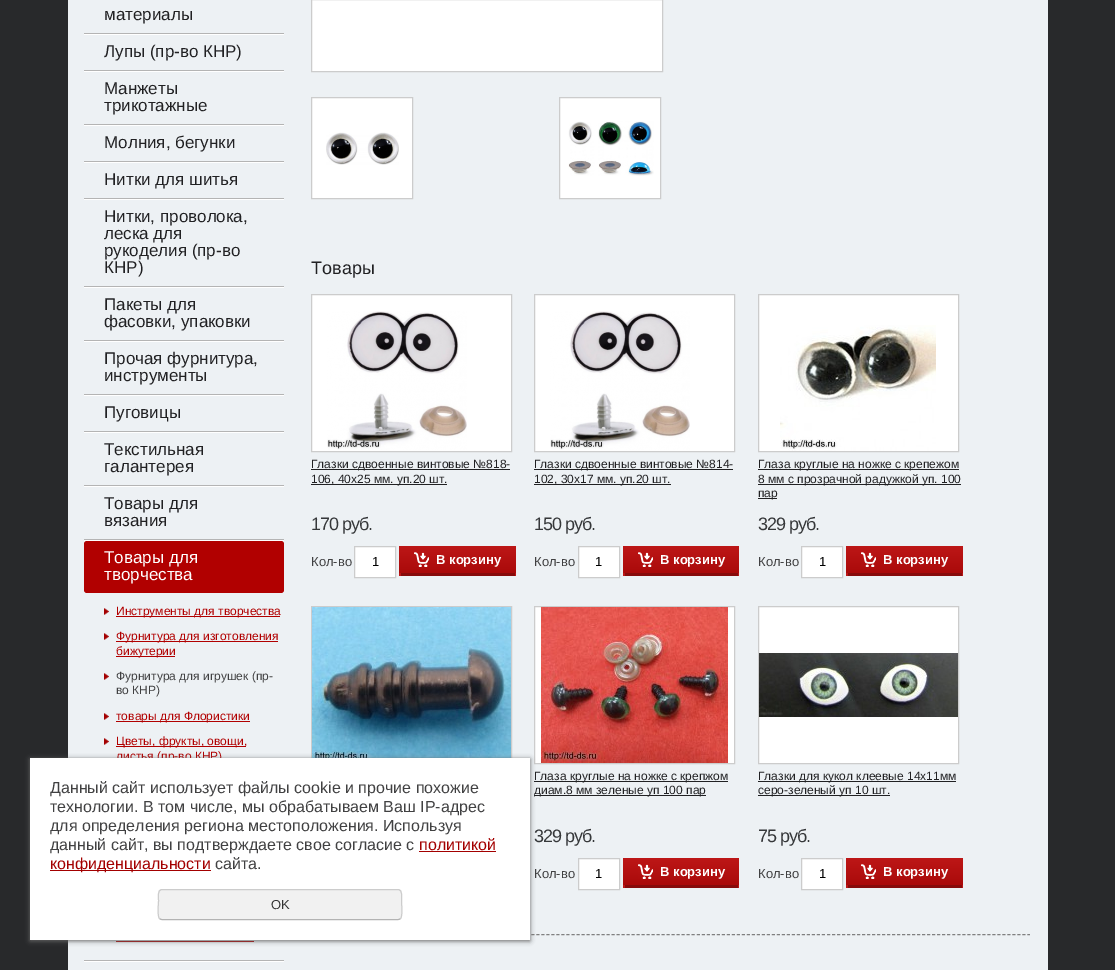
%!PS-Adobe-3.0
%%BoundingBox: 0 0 1115 970
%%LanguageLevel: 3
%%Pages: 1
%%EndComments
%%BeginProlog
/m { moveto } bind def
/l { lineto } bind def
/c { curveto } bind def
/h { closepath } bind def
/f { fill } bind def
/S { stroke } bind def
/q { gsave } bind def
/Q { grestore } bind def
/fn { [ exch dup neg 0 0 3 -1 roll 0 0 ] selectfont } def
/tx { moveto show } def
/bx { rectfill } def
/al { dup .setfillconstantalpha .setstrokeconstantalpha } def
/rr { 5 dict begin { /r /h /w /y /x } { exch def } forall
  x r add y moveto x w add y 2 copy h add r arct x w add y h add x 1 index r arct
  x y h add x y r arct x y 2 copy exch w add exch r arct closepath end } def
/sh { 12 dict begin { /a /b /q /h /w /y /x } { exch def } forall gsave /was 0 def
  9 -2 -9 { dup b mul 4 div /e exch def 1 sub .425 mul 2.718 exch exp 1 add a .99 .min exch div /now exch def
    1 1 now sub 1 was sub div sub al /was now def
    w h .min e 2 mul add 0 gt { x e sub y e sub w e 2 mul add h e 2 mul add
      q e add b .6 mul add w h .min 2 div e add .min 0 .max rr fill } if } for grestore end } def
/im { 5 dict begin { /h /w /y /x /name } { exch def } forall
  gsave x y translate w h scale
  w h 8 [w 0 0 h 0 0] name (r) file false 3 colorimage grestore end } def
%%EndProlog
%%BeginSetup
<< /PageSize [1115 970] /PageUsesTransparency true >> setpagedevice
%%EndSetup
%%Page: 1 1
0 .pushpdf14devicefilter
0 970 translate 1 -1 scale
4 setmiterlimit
0.157 0.161 0.169 setrgbcolor
0 0 1115 970 bx
0.929 0.945 0.957 setrgbcolor
68 0 980 970 bx
0.706 setgray
84 33 200 1 bx
/LiberationSans-Regular 17 fn
0.129 0.129 0.137 setrgbcolor
(материалы) 104 20 tx
1 setgray
84 34 200 1 bx
0.706 setgray
84 70 200 1 bx
0.129 0.129 0.137 setrgbcolor
(Лупы \(пр-во КНР\)) 104 57 tx
1 setgray
84 71 200 1 bx
0.706 setgray
84 124 200 1 bx
0.129 0.129 0.137 setrgbcolor
(Манжеты) 104 94 tx
(трикотажные) 104 111 tx
1 setgray
84 125 200 1 bx
0.706 setgray
84 161 200 1 bx
0.129 0.129 0.137 setrgbcolor
(Молния, бегунки) 104 148 tx
1 setgray
84 162 200 1 bx
0.706 setgray
84 198 200 1 bx
0.129 0.129 0.137 setrgbcolor
(Нитки для шитья) 104 185 tx
1 setgray
84 199 200 1 bx
0.706 setgray
84 286 200 1 bx
0.129 0.129 0.137 setrgbcolor
(Нитки, проволока,) 104 222 tx
(леска для) 104 239 tx
(рукоделия \(пр-во) 104 256 tx
(КНР\)) 104 273 tx
1 setgray
84 287 200 1 bx
0.706 setgray
84 340 200 1 bx
0.129 0.129 0.137 setrgbcolor
(Пакеты для) 104 310 tx
(фасовки, упаковки) 104 327 tx
1 setgray
84 341 200 1 bx
0.706 setgray
84 394 200 1 bx
0.129 0.129 0.137 setrgbcolor
(Прочая фурнитура,) 104 364 tx
(инструменты) 104 381 tx
1 setgray
84 395 200 1 bx
0.706 setgray
84 431 200 1 bx
0.129 0.129 0.137 setrgbcolor
(Пуговицы) 104 418 tx
1 setgray
84 432 200 1 bx
0.706 setgray
84 485 200 1 bx
0.129 0.129 0.137 setrgbcolor
(Текстильная) 104 455 tx
(галантерея) 104 472 tx
1 setgray
84 486 200 1 bx
0.706 setgray
84 539 200 1 bx
0.129 0.129 0.137 setrgbcolor
(Товары для) 104 509 tx
(вязания) 104 526 tx
1 setgray
84 540 200 1 bx
0.706 setgray
84 960 200 1 bx
0.694 0 0 setrgbcolor
84 541 200 52 3 rr f
1 setgray
(Товары для) 104 563 tx
(творчества) 104 580 tx
(image0.raw) 104 608 5 7 im
0.694 0 0 setrgbcolor
116 616 164 1 bx
/LiberationSans-Regular 12 fn
(Инструменты для творчества) 116 615 tx
(image0.raw) 104 633 5 7 im
116 641 162 1 bx
(Фурнитура для изготовления) 116 640 tx
116 656 59 1 bx
(бижутерии) 116 655 tx
(image0.raw) 104 673 5 7 im
0.255 0.255 0.259 setrgbcolor
(Фурнитура для игрушек \(пр-) 116 680 tx
(во КНР\)) 116 694 tx
(image0.raw) 104 713 5 7 im
0.694 0 0 setrgbcolor
116 721 134 1 bx
(товары для Флористики) 116 720 tx
(image0.raw) 104 738 5 7 im
116 746 130 1 bx
(Цветы, фрукты, овощи,) 116 745 tx
(листья \(пр-во КНР\)) 116 760 tx
116 941 138 1 bx
1 setgray
84 961 200 1 bx
311.5 -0.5 m 662.5 -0.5 l 662.5 71.5 l 311.5 71.5 l h q f Q
0.8 setgray
S
1 setgray
311.5 97.5 m 412.5 97.5 l 412.5 198.5 l 311.5 198.5 l h q f Q
0.8 setgray
S
(image1.raw) 326 132 73 33 im
1 setgray
559.5 97.5 m 660.5 97.5 l 660.5 198.5 l 559.5 198.5 l h q f Q
0.8 setgray
S
(image2.raw) 568 121 86 55 im
/LiberationSans-Regular 18 fn
0.129 0.129 0.137 setrgbcolor
(Товары) 311 274 tx
1 setgray
311.5 294.5 m 511.5 294.5 l 511.5 451.5 l 311.5 451.5 l h q f Q
0.8 setgray
S
(image3.raw) 327 311 140 139 im
0.129 0.129 0.137 setrgbcolor
311 469 199 1 bx
/LiberationSans-Regular 12 fn
(Глазки сдвоенные винтовые №818-) 311 468 tx
311 484 136 1 bx
(106, 40х25 мм. уп.20 шт.) 311 483 tx
/LiberationSans-Regular 18 fn
0.212 0.22 0.227 setrgbcolor
311 530 m -1 0 (170 руб.) ashow
/LiberationSans-Regular 13 fn
0.255 0.255 0.259 setrgbcolor
(Кол-во) 311 566 tx
1 setgray
354.5 546.5 m 395.5 546.5 l 395.5 577.5 l 354.5 577.5 l h q f Q
0.8 setgray
S
0 setgray
(1) 372 566 tx
q 402 546 m 513 546 l 514.5 546 516 547.5 516 549 c 516 573 l 399 573 l 399 549 l 399 547.5 400.5 546 402 546 c h clip newpath
<< /ShadingType 2 /ColorSpace /DeviceRGB /Coords [458 546 458 573] /Extend [true true] /Function << /FunctionType 2 /Domain [0 1] /C0 [0.741 0.09 0.09] /C1 [0.667 0.039 0.039] /N 1 >> >> shfill Q
q 399 573 m 516 573 l 516 574.5 514.5 576 513 576 c 402 576 l 400.5 576 399 574.5 399 573 c h clip newpath
<< /ShadingType 2 /ColorSpace /DeviceRGB /Coords [458 573 458 600] /Extend [true true] /Function << /FunctionType 2 /Domain [0 1] /C0 [0.741 0.09 0.09] /C1 [0.667 0.039 0.039] /N 1 >> >> shfill Q
0.529 0.043 0.043 setrgbcolor
401 573 114 3 bx
(image4.raw) 414 552 15 15 im
/LiberationSans-Bold 13 fn
1 setgray
(В корзину) 436 564 tx
534.5 294.5 m 734.5 294.5 l 734.5 451.5 l 534.5 451.5 l h q f Q
0.8 setgray
S
(image3.raw) 550 311 140 139 im
0.129 0.129 0.137 setrgbcolor
534 469 199 1 bx
/LiberationSans-Regular 12 fn
(Глазки сдвоенные винтовые №814-) 534 468 tx
534 484 137 1 bx
(102, 30х17 мм. уп.20 шт.) 534 483 tx
/LiberationSans-Regular 18 fn
0.212 0.22 0.227 setrgbcolor
534 530 m -1 0 (150 руб.) ashow
/LiberationSans-Regular 13 fn
0.255 0.255 0.259 setrgbcolor
(Кол-во) 534 566 tx
1 setgray
578.5 546.5 m 619.5 546.5 l 619.5 577.5 l 578.5 577.5 l h q f Q
0.8 setgray
S
0 setgray
(1) 595 566 tx
q 626 546 m 736 546 l 737.5 546 739 547.5 739 549 c 739 573 l 623 573 l 623 549 l 623 547.5 624.5 546 626 546 c h clip newpath
<< /ShadingType 2 /ColorSpace /DeviceRGB /Coords [681 546 681 573] /Extend [true true] /Function << /FunctionType 2 /Domain [0 1] /C0 [0.741 0.09 0.09] /C1 [0.667 0.039 0.039] /N 1 >> >> shfill Q
q 623 573 m 739 573 l 739 574.5 737.5 576 736 576 c 626 576 l 624.5 576 623 574.5 623 573 c h clip newpath
<< /ShadingType 2 /ColorSpace /DeviceRGB /Coords [681 573 681 600] /Extend [true true] /Function << /FunctionType 2 /Domain [0 1] /C0 [0.741 0.09 0.09] /C1 [0.667 0.039 0.039] /N 1 >> >> shfill Q
0.529 0.043 0.043 setrgbcolor
625 573 113 3 bx
(image4.raw) 638 552 15 15 im
/LiberationSans-Bold 13 fn
1 setgray
(В корзину) 660 564 tx
758.5 294.5 m 958.5 294.5 l 958.5 451.5 l 758.5 451.5 l h q f Q
0.8 setgray
S
(image5.raw) 780 325 156 126 im
0.129 0.129 0.137 setrgbcolor
758 469 201 1 bx
/LiberationSans-Regular 12 fn
(Глаза круглые на ножке с крепежом) 758 468 tx
758 484 203 1 bx
(8 мм с прозрачной радужкой уп. 100) 758 483 tx
758 498 19 1 bx
(пар) 758 497 tx
/LiberationSans-Regular 18 fn
0.212 0.22 0.227 setrgbcolor
758 530 m -1 0 (329 руб.) ashow
/LiberationSans-Regular 13 fn
0.255 0.255 0.259 setrgbcolor
(Кол-во) 758 566 tx
1 setgray
801.5 546.5 m 842.5 546.5 l 842.5 577.5 l 801.5 577.5 l h q f Q
0.8 setgray
S
0 setgray
(1) 819 566 tx
q 849 546 m 960 546 l 961.5 546 963 547.5 963 549 c 963 573 l 846 573 l 846 549 l 846 547.5 847.5 546 849 546 c h clip newpath
<< /ShadingType 2 /ColorSpace /DeviceRGB /Coords [905 546 905 573] /Extend [true true] /Function << /FunctionType 2 /Domain [0 1] /C0 [0.741 0.09 0.09] /C1 [0.667 0.039 0.039] /N 1 >> >> shfill Q
q 846 573 m 963 573 l 963 574.5 961.5 576 960 576 c 849 576 l 847.5 576 846 574.5 846 573 c h clip newpath
<< /ShadingType 2 /ColorSpace /DeviceRGB /Coords [905 573 905 600] /Extend [true true] /Function << /FunctionType 2 /Domain [0 1] /C0 [0.741 0.09 0.09] /C1 [0.667 0.039 0.039] /N 1 >> >> shfill Q
0.529 0.043 0.043 setrgbcolor
848 573 114 3 bx
(image4.raw) 861 552 15 15 im
/LiberationSans-Bold 13 fn
1 setgray
(В корзину) 883 564 tx
0.8 setgray
311.5 606.5 200 157 rectstroke
(image6.raw) 312 607 199 151 im
1 setgray
534.5 606.5 m 734.5 606.5 l 734.5 763.5 l 534.5 763.5 l h q f Q
0.8 setgray
S
(image7.raw) 541 607 187 156 im
0.129 0.129 0.137 setrgbcolor
534 781 194 1 bx
/LiberationSans-Regular 12 fn
(Глаза круглые на ножке с крепжом) 534 780 tx
534 795 172 1 bx
(диам.8 мм зеленые уп 100 пар) 534 794 tx
/LiberationSans-Regular 18 fn
0.212 0.22 0.227 setrgbcolor
534 842 m -1 0 (329 руб.) ashow
/LiberationSans-Regular 13 fn
0.255 0.255 0.259 setrgbcolor
(Кол-во) 534 878 tx
1 setgray
578.5 858.5 m 619.5 858.5 l 619.5 889.5 l 578.5 889.5 l h q f Q
0.8 setgray
S
0 setgray
(1) 595 878 tx
q 626 858 m 736 858 l 737.5 858 739 859.5 739 861 c 739 885 l 623 885 l 623 861 l 623 859.5 624.5 858 626 858 c h clip newpath
<< /ShadingType 2 /ColorSpace /DeviceRGB /Coords [681 858 681 885] /Extend [true true] /Function << /FunctionType 2 /Domain [0 1] /C0 [0.741 0.09 0.09] /C1 [0.667 0.039 0.039] /N 1 >> >> shfill Q
q 623 885 m 739 885 l 739 886.5 737.5 888 736 888 c 626 888 l 624.5 888 623 886.5 623 885 c h clip newpath
<< /ShadingType 2 /ColorSpace /DeviceRGB /Coords [681 885 681 912] /Extend [true true] /Function << /FunctionType 2 /Domain [0 1] /C0 [0.741 0.09 0.09] /C1 [0.667 0.039 0.039] /N 1 >> >> shfill Q
0.529 0.043 0.043 setrgbcolor
625 885 113 3 bx
(image4.raw) 638 864 15 15 im
/LiberationSans-Bold 13 fn
1 setgray
(В корзину) 660 876 tx
758.5 606.5 m 958.5 606.5 l 958.5 763.5 l 758.5 763.5 l h q f Q
0.8 setgray
S
(image8.raw) 759 653 199 64 im
0.129 0.129 0.137 setrgbcolor
758 781 198 1 bx
/LiberationSans-Regular 12 fn
(Глазки для кукол клеевые 14х11мм) 758 780 tx
758 795 132 1 bx
(серо-зеленый уп 10 шт.) 758 794 tx
/LiberationSans-Regular 18 fn
0.212 0.22 0.227 setrgbcolor
758 842 m -1 0 (75 руб.) ashow
/LiberationSans-Regular 13 fn
0.255 0.255 0.259 setrgbcolor
(Кол-во) 758 878 tx
1 setgray
801.5 858.5 m 842.5 858.5 l 842.5 889.5 l 801.5 889.5 l h q f Q
0.8 setgray
S
0 setgray
(1) 819 878 tx
q 849 858 m 960 858 l 961.5 858 963 859.5 963 861 c 963 885 l 846 885 l 846 861 l 846 859.5 847.5 858 849 858 c h clip newpath
<< /ShadingType 2 /ColorSpace /DeviceRGB /Coords [905 858 905 885] /Extend [true true] /Function << /FunctionType 2 /Domain [0 1] /C0 [0.741 0.09 0.09] /C1 [0.667 0.039 0.039] /N 1 >> >> shfill Q
q 846 885 m 963 885 l 963 886.5 961.5 888 960 888 c 849 888 l 847.5 888 846 886.5 846 885 c h clip newpath
<< /ShadingType 2 /ColorSpace /DeviceRGB /Coords [905 885 905 912] /Extend [true true] /Function << /FunctionType 2 /Domain [0 1] /C0 [0.741 0.09 0.09] /C1 [0.667 0.039 0.039] /N 1 >> >> shfill Q
0.529 0.043 0.043 setrgbcolor
848 885 114 3 bx
(image4.raw) 861 864 15 15 im
/LiberationSans-Bold 13 fn
1 setgray
(В корзину) 883 876 tx
0.502 setgray
[3 2.01] 0 setdash
311 934.5 m 1030 934.5 l S
0.4 setgray
30 759 500 182 0 2.5 1 sh
1 setgray
30 758 500 182 bx
/LiberationSans-Regular 16 fn
0.255 0.255 0.259 setrgbcolor
(Данный сайт использует файлы cookie и прочие похожие) 50 793 tx
(технологии. В том числе, мы обрабатываем Ваш IP-адрес) 50 812 tx
(для определения региона местоположения. Используя) 50 831 tx
(данный сайт, вы подтверждаете свое согласие с) 50 850 tx
0.639 0 0 setrgbcolor
(политикой) 419 850 tx
419 851 77 1 bx
50 870 161 1 bx
(конфиденциальности) 50 869 tx
0.255 0.255 0.259 setrgbcolor
(сайта.) 215 869 tx
0.945 setgray
158 889 244 31 4 rr f
0.702 setgray
[] 0 setdash
400.5 918.5 m 400 919 399 919.5 398 919.5 c 162 919.5 l 161 919.5 160 919 159.5 918.5 c S
0.8 setgray
159.5 918.5 m 157 916 158.5 904 158.5 900.5 c 158.5 898 157 889.5 162 889.5 c 398 889.5 l 403 889.5 401.5 898 401.5 900.5 c 401.5 904 403 916 400.5 918.5 c S
/LiberationSans-Regular 13 fn
0.2 setgray
(OK) 271 909 tx
.poppdf14devicefilter showpage
%%EOF
